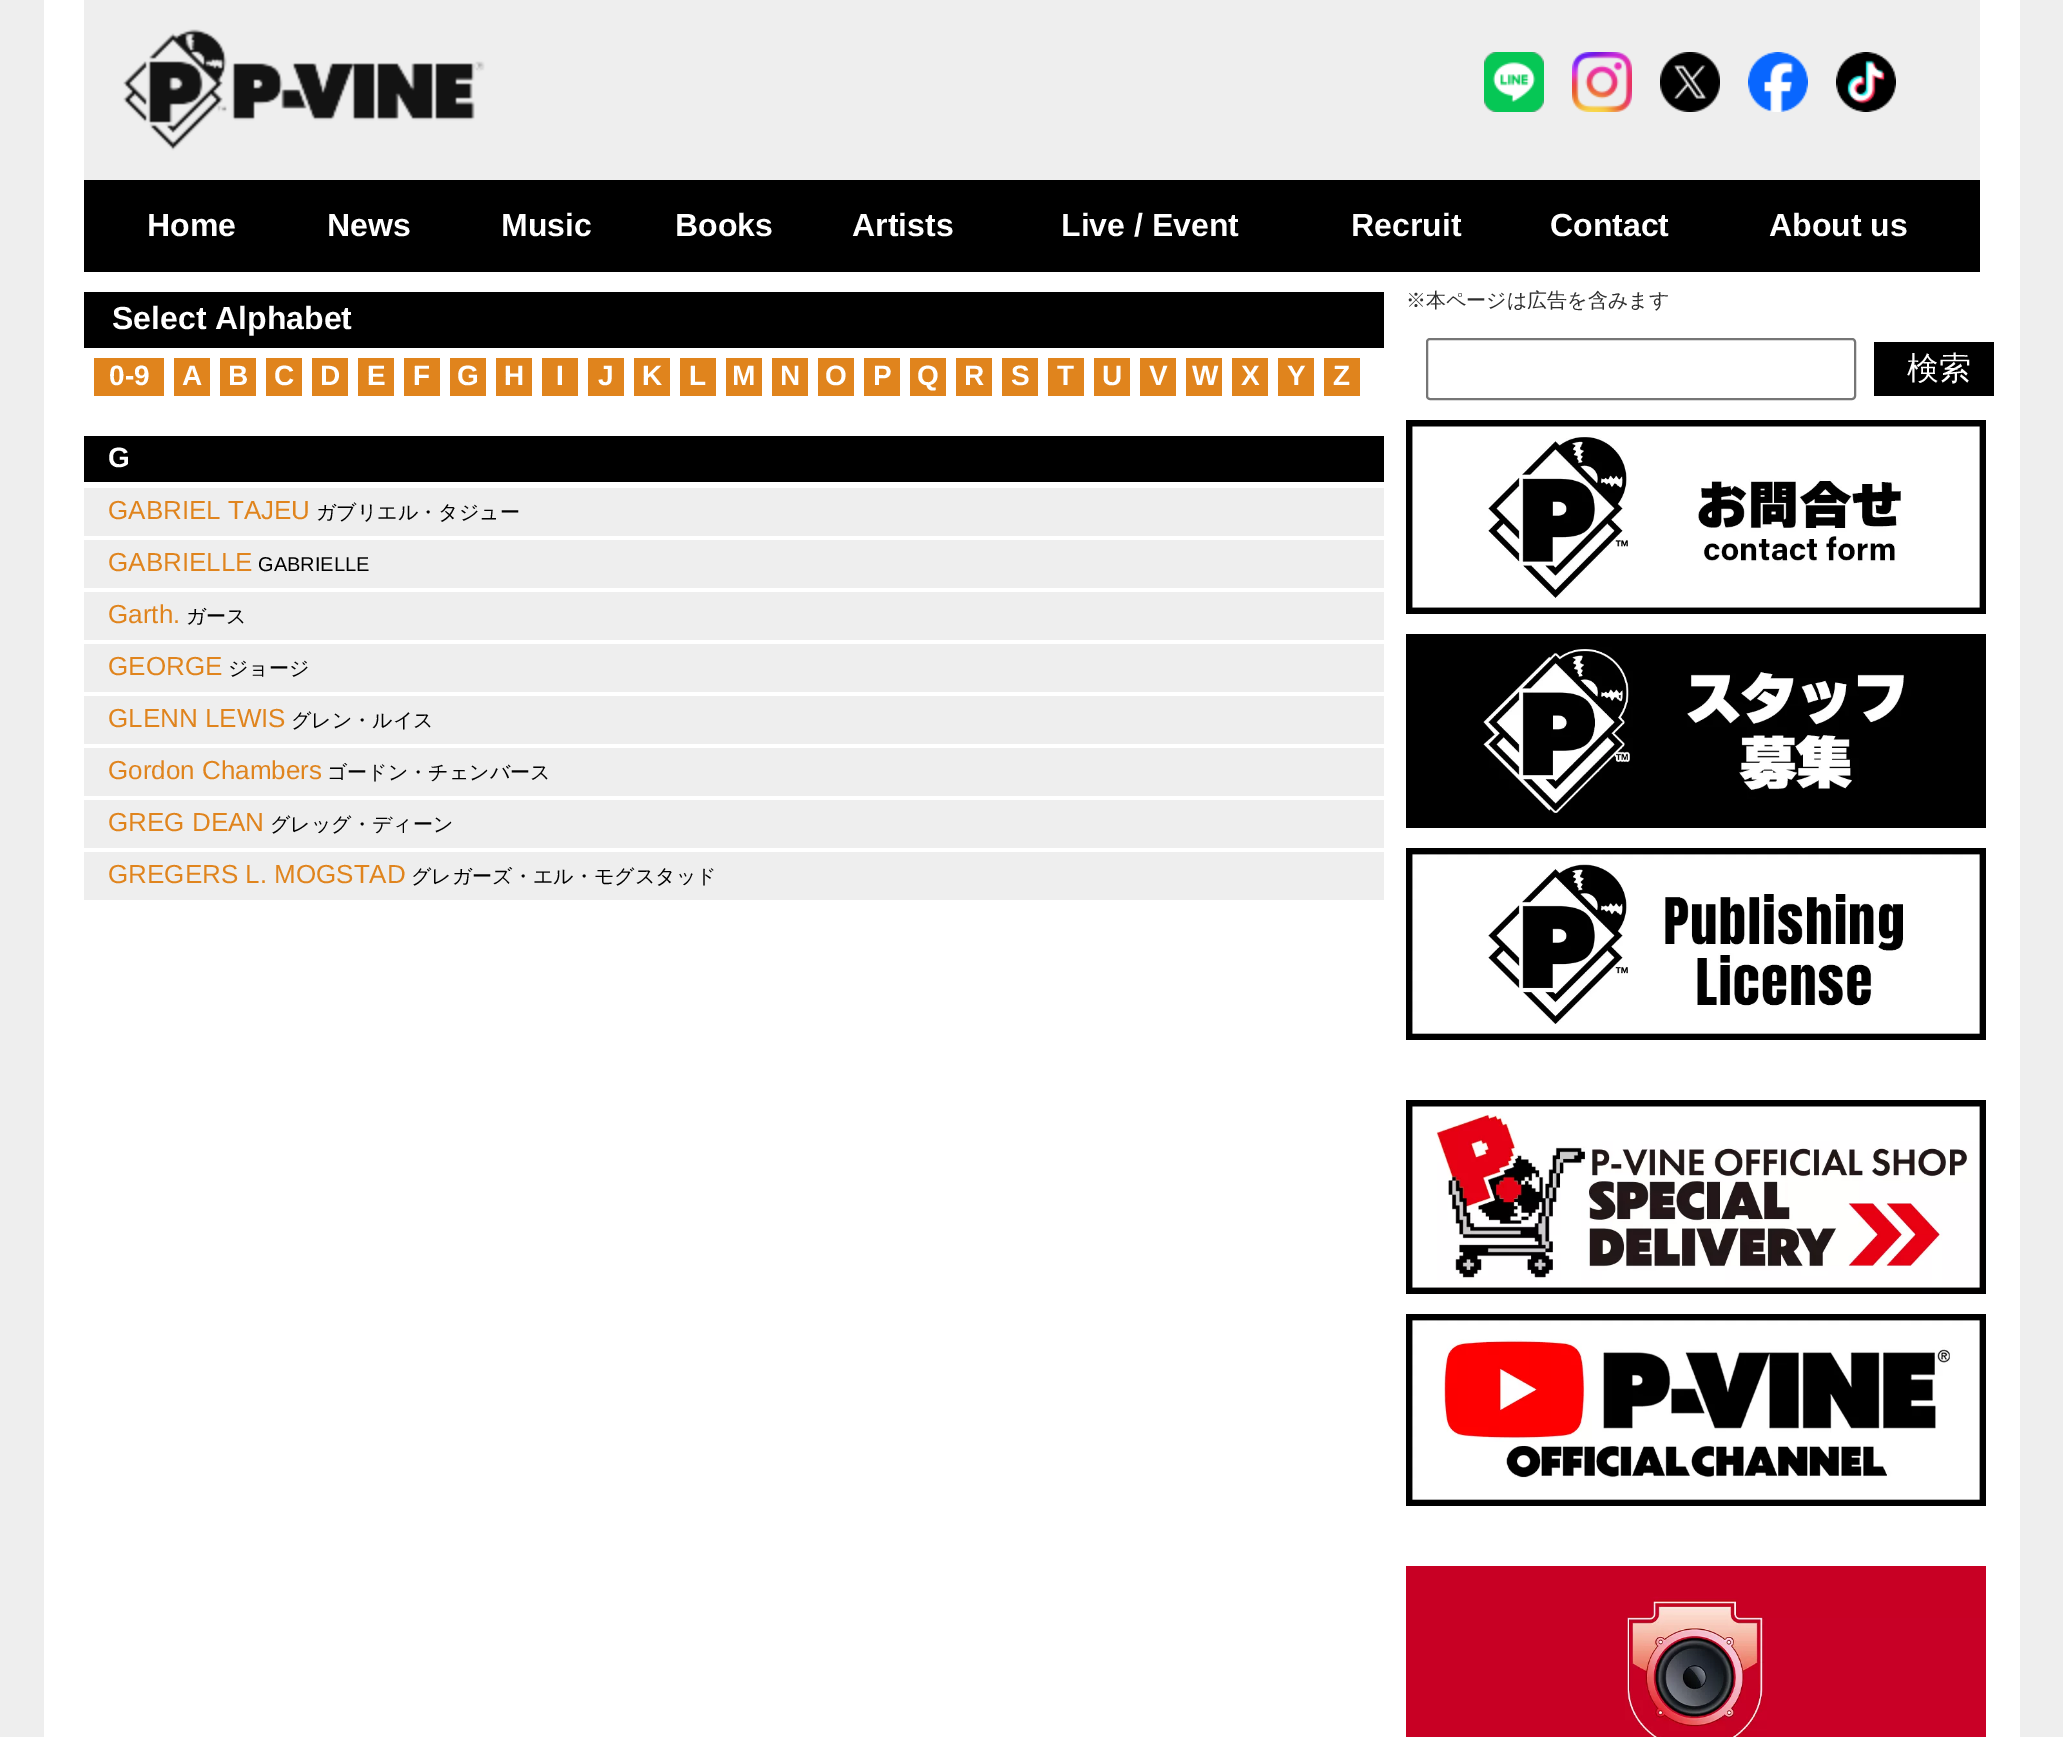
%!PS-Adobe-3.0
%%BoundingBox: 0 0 2063 1737
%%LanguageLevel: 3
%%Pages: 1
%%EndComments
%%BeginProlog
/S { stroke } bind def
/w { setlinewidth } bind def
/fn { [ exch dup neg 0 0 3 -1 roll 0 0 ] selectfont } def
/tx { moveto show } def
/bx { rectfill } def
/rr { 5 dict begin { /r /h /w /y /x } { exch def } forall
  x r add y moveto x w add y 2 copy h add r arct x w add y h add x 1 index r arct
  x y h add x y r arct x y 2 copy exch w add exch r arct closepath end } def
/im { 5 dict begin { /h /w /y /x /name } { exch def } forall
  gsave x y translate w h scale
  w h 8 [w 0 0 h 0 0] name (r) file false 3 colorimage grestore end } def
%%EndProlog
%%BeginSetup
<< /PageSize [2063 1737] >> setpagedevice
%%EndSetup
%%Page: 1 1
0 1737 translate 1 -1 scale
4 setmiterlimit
0.933 setgray
0 0 2063 1737 bx
1 setgray
44 0 1976 1737 bx
0.933 setgray
84 0 1896 180 bx
(image0.raw) 123 29 362 122 im
(image1.raw) 1484 52 60 60 im
(image2.raw) 1572 52 60 60 im
(image3.raw) 1660 52 60 60 im
(image4.raw) 1748 52 60 60 im
(image5.raw) 1836 52 60 60 im
0 setgray
84 180 1896 92 bx
/LiberationSans-Bold 32 fn
1 setgray
(Home) 147 236 tx
(News) 327 236 tx
(Music) 501 236 tx
(Books) 675 236 tx
(Artists) 852 236 tx
(Live / Event) 1061 236 tx
(Recruit) 1351 236 tx
(Contact) 1550 236 tx
(About us) 1769 236 tx
0 setgray
84 292 1300 56 bx
1 setgray
(Select Alphabet) 112 329 tx
0.878 0.518 0.114 setrgbcolor
94 358 70 38 bx
/LiberationSans-Bold 28 fn
1 setgray
(0-9) 109 385 tx
0.878 0.518 0.114 setrgbcolor
174 358 36 38 bx
1 setgray
(A) 182 385 tx
0.878 0.518 0.114 setrgbcolor
220 358 36 38 bx
1 setgray
(B) 228 385 tx
0.878 0.518 0.114 setrgbcolor
266 358 36 38 bx
1 setgray
(C) 274 385 tx
0.878 0.518 0.114 setrgbcolor
312 358 36 38 bx
1 setgray
(D) 320 385 tx
0.878 0.518 0.114 setrgbcolor
358 358 36 38 bx
1 setgray
(E) 367 385 tx
0.878 0.518 0.114 setrgbcolor
404 358 36 38 bx
1 setgray
(F) 413 385 tx
0.878 0.518 0.114 setrgbcolor
450 358 36 38 bx
1 setgray
(G) 457 385 tx
0.878 0.518 0.114 setrgbcolor
496 358 36 38 bx
1 setgray
(H) 504 385 tx
0.878 0.518 0.114 setrgbcolor
542 358 36 38 bx
1 setgray
(I) 556 385 tx
0.878 0.518 0.114 setrgbcolor
588 358 36 38 bx
1 setgray
(J) 598 385 tx
0.878 0.518 0.114 setrgbcolor
634 358 36 38 bx
1 setgray
(K) 642 385 tx
0.878 0.518 0.114 setrgbcolor
680 358 36 38 bx
1 setgray
(L) 689 385 tx
0.878 0.518 0.114 setrgbcolor
726 358 36 38 bx
1 setgray
(M) 732 385 tx
0.878 0.518 0.114 setrgbcolor
772 358 36 38 bx
1 setgray
(N) 780 385 tx
0.878 0.518 0.114 setrgbcolor
818 358 36 38 bx
1 setgray
(O) 825 385 tx
0.878 0.518 0.114 setrgbcolor
864 358 36 38 bx
1 setgray
(P) 873 385 tx
0.878 0.518 0.114 setrgbcolor
910 358 36 38 bx
1 setgray
(Q) 917 385 tx
0.878 0.518 0.114 setrgbcolor
956 358 36 38 bx
1 setgray
(R) 964 385 tx
0.878 0.518 0.114 setrgbcolor
1002 358 36 38 bx
1 setgray
(S) 1011 385 tx
0.878 0.518 0.114 setrgbcolor
1048 358 36 38 bx
1 setgray
(T) 1057 385 tx
0.878 0.518 0.114 setrgbcolor
1094 358 36 38 bx
1 setgray
(U) 1102 385 tx
0.878 0.518 0.114 setrgbcolor
1140 358 36 38 bx
1 setgray
(V) 1149 385 tx
0.878 0.518 0.114 setrgbcolor
1186 358 36 38 bx
1 setgray
(W) 1192 385 tx
0.878 0.518 0.114 setrgbcolor
1232 358 36 38 bx
1 setgray
(X) 1241 385 tx
0.878 0.518 0.114 setrgbcolor
1278 358 36 38 bx
1 setgray
(Y) 1287 385 tx
0.878 0.518 0.114 setrgbcolor
1324 358 36 38 bx
1 setgray
(Z) 1333 385 tx
0 setgray
84 436 1300 46 bx
1 setgray
(G) 108 467 tx
0.933 setgray
84 488 1300 48 bx
/LiberationSans-Regular 26 fn
0.878 0.518 0.114 setrgbcolor
(GABRIEL TAJEU) 108 519 tx
/WenQuanYiZenHei-Medium 20 fn
0 setgray
(ガブリエル・タジュー) 316 519 tx
0.933 setgray
84 540 1300 48 bx
/LiberationSans-Regular 26 fn
0.878 0.518 0.114 setrgbcolor
(GABRIELLE) 108 571 tx
/LiberationSans-Regular 20 fn
0 setgray
(GABRIELLE) 258 571 tx
0.933 setgray
84 592 1300 48 bx
/LiberationSans-Regular 26 fn
0.878 0.518 0.114 setrgbcolor
(Garth.) 108 623 tx
/WenQuanYiZenHei-Medium 20 fn
0 setgray
(ガース) 186 623 tx
0.933 setgray
84 644 1300 48 bx
/LiberationSans-Regular 26 fn
0.878 0.518 0.114 setrgbcolor
(GEORGE) 108 675 tx
/WenQuanYiZenHei-Medium 20 fn
0 setgray
(ジョージ) 228 675 tx
0.933 setgray
84 696 1300 48 bx
/LiberationSans-Regular 26 fn
0.878 0.518 0.114 setrgbcolor
(GLENN LEWIS) 108 727 tx
/WenQuanYiZenHei-Medium 20 fn
0 setgray
(グレン・ルイス) 291 727 tx
0.933 setgray
84 748 1300 48 bx
/LiberationSans-Regular 26 fn
0.878 0.518 0.114 setrgbcolor
(Gordon Chambers) 108 779 tx
/WenQuanYiZenHei-Medium 20 fn
0 setgray
(ゴードン・チェンバース) 327 779 tx
0.933 setgray
84 800 1300 48 bx
/LiberationSans-Regular 26 fn
0.878 0.518 0.114 setrgbcolor
(GREG DEAN) 108 831 tx
/WenQuanYiZenHei-Medium 20 fn
0 setgray
(グレッグ・ディーン) 270 831 tx
0.933 setgray
84 852 1300 48 bx
/LiberationSans-Regular 26 fn
0.878 0.518 0.114 setrgbcolor
(GREGERS L. MOGSTAD) 108 883 tx
/WenQuanYiZenHei-Medium 20 fn
0 setgray
(グレガーズ・エル・モグスタッド) 411 883 tx
0.18 setgray
(※本ページは広告を含みます) 1406 307 tx
0.463 setgray
2 w
1427 339 428 60 3 rr S
0 setgray
1874 342 120 54 bx
/WenQuanYiZenHei-Medium 32 fn
1 setgray
(検索) 1907 379 tx
(image6.raw) 1406 420 580 194 im
(image7.raw) 1406 634 580 194 im
(image8.raw) 1406 848 580 192 im
(image9.raw) 1406 1100 580 194 im
(image10.raw) 1406 1314 580 192 im
(image11.raw) 1406 1566 580 171 im
showpage
%%EOF
